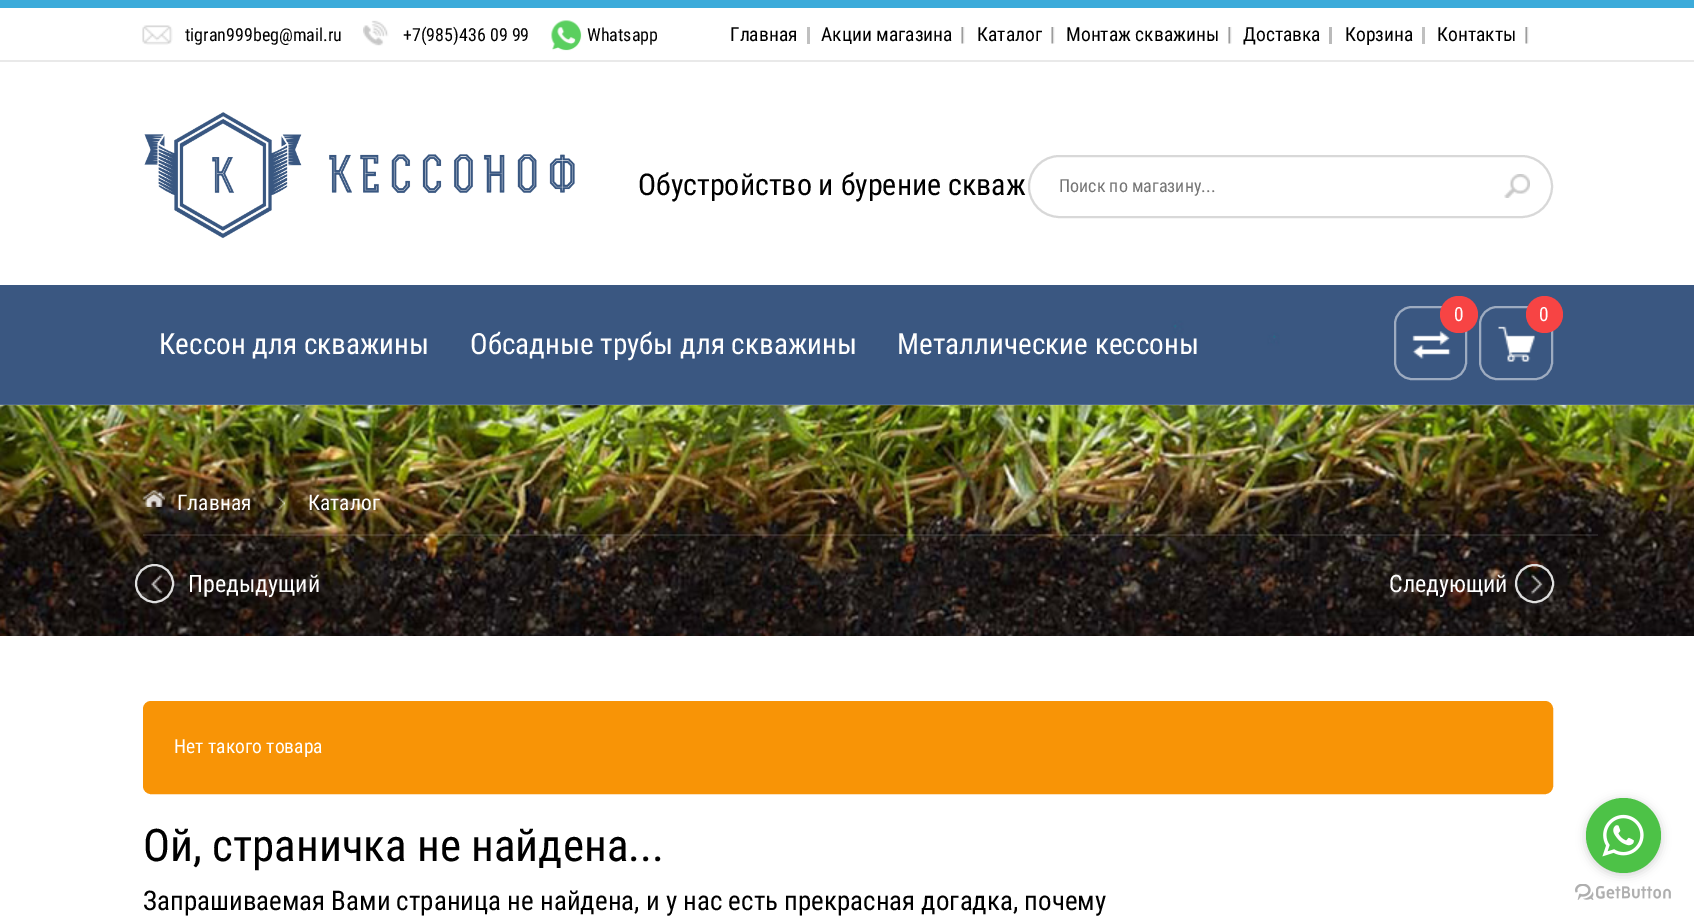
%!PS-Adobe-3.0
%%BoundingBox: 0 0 1694 923
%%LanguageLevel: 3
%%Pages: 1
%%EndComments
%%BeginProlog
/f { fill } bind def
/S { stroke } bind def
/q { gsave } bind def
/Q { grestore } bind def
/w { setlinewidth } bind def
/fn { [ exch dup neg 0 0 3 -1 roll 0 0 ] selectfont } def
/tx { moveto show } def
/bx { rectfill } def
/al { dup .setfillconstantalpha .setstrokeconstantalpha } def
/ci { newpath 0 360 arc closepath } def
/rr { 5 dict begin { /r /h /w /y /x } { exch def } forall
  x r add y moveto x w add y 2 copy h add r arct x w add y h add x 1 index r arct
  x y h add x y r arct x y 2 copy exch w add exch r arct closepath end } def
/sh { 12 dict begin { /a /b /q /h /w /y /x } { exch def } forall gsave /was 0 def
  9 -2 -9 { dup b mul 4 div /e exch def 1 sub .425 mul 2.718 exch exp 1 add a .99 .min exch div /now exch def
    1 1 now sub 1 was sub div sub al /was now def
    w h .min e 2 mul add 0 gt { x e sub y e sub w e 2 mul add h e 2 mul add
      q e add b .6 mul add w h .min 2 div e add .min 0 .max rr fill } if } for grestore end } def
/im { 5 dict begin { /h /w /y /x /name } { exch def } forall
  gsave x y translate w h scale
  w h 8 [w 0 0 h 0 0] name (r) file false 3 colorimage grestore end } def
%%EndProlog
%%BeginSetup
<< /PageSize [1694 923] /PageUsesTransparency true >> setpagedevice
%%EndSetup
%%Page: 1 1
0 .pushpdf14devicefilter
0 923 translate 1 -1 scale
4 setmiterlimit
1 setgray
0 0 1694 923 bx
0.235 0.671 0.855 setrgbcolor
0 0 1694 8 bx
(image0.raw) 142 25 31 20 im
/RobotoCondensed-Regular 18 fn
0 setgray
(tigran999beg@mail.ru) 185 41 tx
(image1.raw) 363 20 26 26 im
(+7\(985\)436 09 99) 403 41 tx
(image2.raw) 551 20 31 31 im
(Whatsapp) 587 41 tx
0.753 setgray
807 27 3 17 bx
/RobotoCondensed-Regular 19.5 fn
0 setgray
(Главная) 730 41 tx
(image3.raw) 961 27 4 17 im
(Акции магазина) 821 41 tx
(image3.raw) 1051 27 4 17 im
(Каталог) 977 41 tx
(image3.raw) 1228 27 4 17 im
(Монтаж скважины) 1066 41 tx
0.729 setgray
1329 27 3 17 bx
0 setgray
(Доставка) 1243 41 tx
0.753 setgray
1422 27 3 17 bx
0 setgray
(Корзина) 1345 41 tx
(image3.raw) 1525 27 4 17 im
(Контакты) 1437 41 tx
0.914 setgray
0 60 1694 2 bx
(image4.raw) 144 112 431 127 im
/RobotoCondensed-Regular 30 fn
0 setgray
(Обустройство и бурение скваж) 638 195 tx
0.847 setgray
2 w
1029 156 523 61 30.5 rr S
/RobotoCondensed-Regular 18 fn
0.459 setgray
(Поиск по магазину...) 1059 192 tx
(image5.raw) 1504 174 26 24 im
(image6.raw) 0 285 1694 120 im
(image7.raw) 1412 331 39 28 im
0.616 0.671 0.753 setrgbcolor
1395 307 71 72 17 rr S
0.969 0.267 0.267 setrgbcolor
1440 296 38 37 18.5 rr f
/RobotoCondensed-Regular 19.5 fn
1 setgray
(0) 1454 321 tx
(image8.raw) 1498 326 37 36 im
0.616 0.671 0.753 setrgbcolor
1480 307 72 72 17 rr S
0.969 0.267 0.267 setrgbcolor
1544.5 314.5 18.5 ci f
1 setgray
(0) 1539 321 tx
/RobotoCondensed-Regular 29.25 fn
(Кессон для скважины) 159 354 tx
(Обсадные трубы для скважины) 470 354 tx
(Металлические кессоны) 897 354 tx
(image9.raw) 0 405 1694 231 im
0.1 al
0 404 1694 2 bx
1 al
(image10.raw) 142 490 23 17 im
/RobotoCondensed-Regular 21.5 fn
(Главная) 177 510 tx
(image11.raw) 277 496 8 14 im
(Каталог) 308 510 tx
0.1 al
143 534 1455 2 bx
1 al
(image12.raw) 151 574 12 20 im
0.875 setgray
154.5 583.5 18.5 ci S
/RobotoCondensed-Regular 24 fn
1 setgray
(Предыдущий) 188 592 tx
(Cледующий) 1389 592 tx
(image13.raw) 1531 574 12 20 im
0.875 setgray
1534.5 583.5 18.5 ci S
0.973 0.58 0.024 setrgbcolor
144 702 1408 91 7 rr q f Q
S
/RobotoCondensed-Regular 19.5 fn
1 setgray
(Нет такого товара) 174 753 tx
/RobotoCondensed-Regular 45 fn
0 setgray
(Ой, страничка не найдена...) 143 861 tx
/RobotoCondensed-Regular 27 fn
(Запрашиваемая Вами страница не найдена, и у нас есть прекрасная догадка, почему) 143 910 tx
(image15.raw) 1575 884 96 16 im
0.533 setgray
1586 800 75 75 37.5 5 0.4 sh
0.302 0.761 0.278 setrgbcolor
1623.5 835.5 37.5 ci f
(image14.raw) 1602 814 42 43 im
.poppdf14devicefilter showpage
%%EOF
